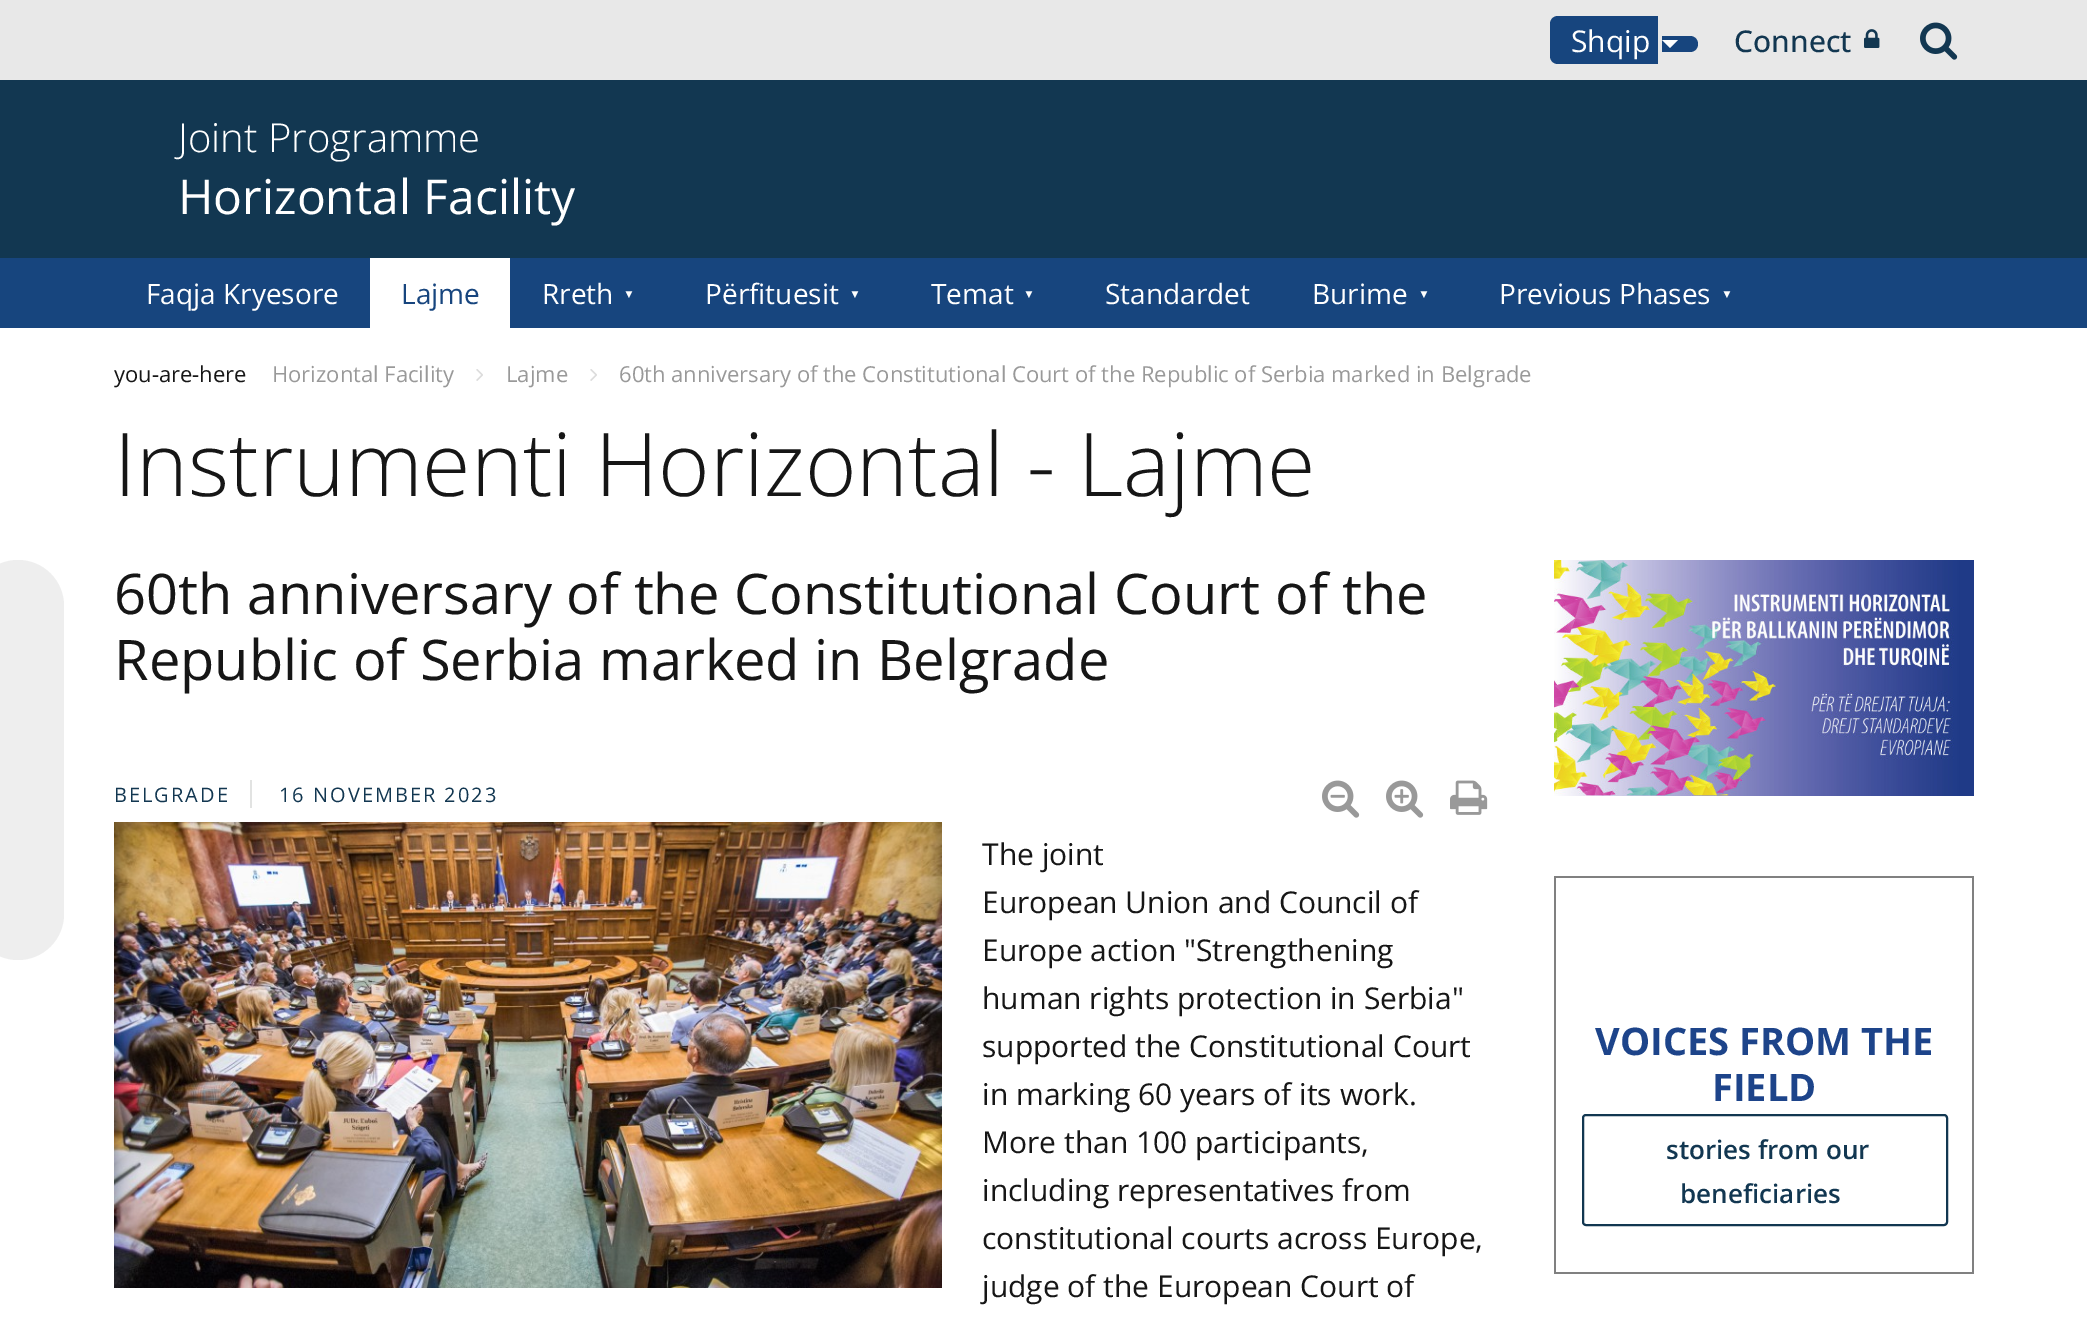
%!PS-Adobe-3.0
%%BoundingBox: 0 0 2087 1323
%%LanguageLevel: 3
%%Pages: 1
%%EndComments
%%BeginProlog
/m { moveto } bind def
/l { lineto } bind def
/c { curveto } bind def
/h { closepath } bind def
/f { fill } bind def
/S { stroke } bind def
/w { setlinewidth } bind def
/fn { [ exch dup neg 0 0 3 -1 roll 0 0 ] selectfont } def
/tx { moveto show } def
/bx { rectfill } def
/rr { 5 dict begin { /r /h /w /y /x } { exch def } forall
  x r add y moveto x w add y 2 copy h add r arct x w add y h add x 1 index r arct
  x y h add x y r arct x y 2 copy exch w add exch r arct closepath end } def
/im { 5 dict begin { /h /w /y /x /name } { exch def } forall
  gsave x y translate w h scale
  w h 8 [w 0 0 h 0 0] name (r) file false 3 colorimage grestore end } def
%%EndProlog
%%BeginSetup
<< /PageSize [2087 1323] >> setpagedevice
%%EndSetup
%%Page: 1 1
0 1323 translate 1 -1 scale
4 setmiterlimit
1 setgray
0 0 2087 1323 bx
0.91 setgray
0 0 2087 80 bx
0.09 0.271 0.494 setrgbcolor
1558 16 m 1658 16 l 1658 64 l 1558 64 l 1553.5 64 1550 60.5 1550 56 c 1550 24 l 1550 19.5 1553.5 16 1558 16 c h f
1662 36 m 1690 36 l 1694.5 36 1698 39.5 1698 44 c 1698 48.5 1694.5 52 1690 52 c 1662 52 l h f
/OpenSans-Regular 30 fn
1 setgray
(Shqip) 1571 52 tx
1662 40 m 1678 40 l 1670 48 l h f
/OpenSans-Medium 30 fn
0.071 0.216 0.318 setrgbcolor
(Connect) 1734 52 tx
(image0.raw) 1864 29 16 19 im
(image1.raw) 1920 22 38 38 im
0 80 2087 178 bx
/OpenSans-Light 40 fn
1 setgray
(Joint Programme) 178 152 tx
/OpenSans-Regular 48 fn
(Horizontal Facility) 178 214 tx
0.09 0.271 0.494 setrgbcolor
0 258 2087 70 bx
/OpenSans-Regular 28 fn
1 setgray
(Faqja Kryesore) 146 304 tx
370 258 140 70 bx
0.09 0.271 0.494 setrgbcolor
(Lajme) 401 304 tx
1 setgray
(Rreth) 542 304 tx
/LiberationSans-Regular 12 fn
623 298 m 8 0 (▼) ashow
/OpenSans-Regular 28 fn
(Përfituesit) 705 304 tx
/LiberationSans-Regular 12 fn
849 298 m 8 0 (▼) ashow
/OpenSans-Regular 28 fn
(Temat) 931 304 tx
/LiberationSans-Regular 12 fn
1023 298 m 8 0 (▼) ashow
/OpenSans-Regular 28 fn
(Standardet) 1105 304 tx
(Burime) 1312 304 tx
/LiberationSans-Regular 12 fn
1418 298 m 8 0 (▼) ashow
/OpenSans-Regular 28 fn
(Previous Phases) 1499 304 tx
/LiberationSans-Regular 12 fn
1721 298 m 8 0 (▼) ashow
/OpenSans-Regular 22 fn
0.086 setgray
(you-are-here) 114 382 tx
0.6 setgray
(Horizontal Facility) 272 382 tx
(image2.raw) 476 369 7 12 im
(Lajme) 506 382 tx
(image2.raw) 590 369 7 12 im
(60th anniversary of the Constitutional Court of the Republic of Serbia marked in Belgrade) 619 382 tx
/OpenSans-Light 88 fn
0.086 setgray
(Instrumenti Horizontal - Lajme) 114 496 tx
0.933 setgray
-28 560 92 400 46 rr f
/OpenSans-Regular 56 fn
0.086 setgray
(60th anniversary of the Constitutional Court of the) 114 614 tx
(Republic of Serbia marked in Belgrade) 114 680 tx
/OpenSans-Regular 20 fn
0.071 0.216 0.318 setrgbcolor
114 802 m 2 0 (BELGRADE) ashow
0.886 0.89 0.886 setrgbcolor
250 780 2 28 bx
0.071 0.216 0.318 setrgbcolor
279 802 m 2 0 (16 NOVEMBER 2023) ashow
(image3.raw) 1322 780 38 38 im
(image4.raw) 1386 780 38 38 im
(image5.raw) 1450 780 38 35 im
(image6.raw) 114 822 828 466 im
/OpenSans-Regular 30 fn
0.086 setgray
(The joint) 982 865 tx
(European Union and Council of) 982 913 tx
(Europe action "Strengthening) 982 961 tx
(human rights protection in Serbia") 982 1009 tx
(supported the Constitutional Court) 982 1057 tx
(in marking 60 years of its work.) 982 1105 tx
(More than 100 participants,) 982 1153 tx
(including representatives from) 982 1201 tx
(constitutional courts across Europe,) 982 1249 tx
(judge of the European Court of) 982 1297 tx
(image7.raw) 1554 560 420 236 im
0.502 setgray
1554 876 420 2 bx
1972 876 2 398 bx
1554 1272 420 2 bx
1554 876 2 398 bx
/OpenSans-Bold 38 fn
0.114 0.267 0.541 setrgbcolor
(VOICES FROM THE) 1595 1055 tx
(FIELD) 1712 1101 tx
0.071 0.216 0.318 setrgbcolor
2 w
1583 1115 364 110 3 rr S
/OpenSans-SemiBold 26 fn
(stories from our) 1666 1159 tx
(beneficiaries) 1680 1203 tx
showpage
%%EOF
